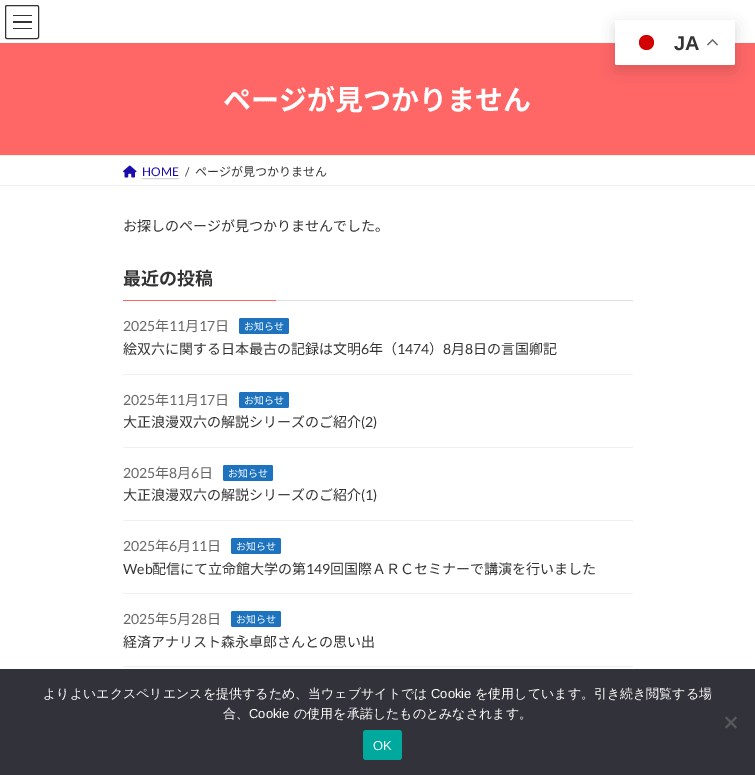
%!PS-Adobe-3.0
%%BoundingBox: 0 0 755 775
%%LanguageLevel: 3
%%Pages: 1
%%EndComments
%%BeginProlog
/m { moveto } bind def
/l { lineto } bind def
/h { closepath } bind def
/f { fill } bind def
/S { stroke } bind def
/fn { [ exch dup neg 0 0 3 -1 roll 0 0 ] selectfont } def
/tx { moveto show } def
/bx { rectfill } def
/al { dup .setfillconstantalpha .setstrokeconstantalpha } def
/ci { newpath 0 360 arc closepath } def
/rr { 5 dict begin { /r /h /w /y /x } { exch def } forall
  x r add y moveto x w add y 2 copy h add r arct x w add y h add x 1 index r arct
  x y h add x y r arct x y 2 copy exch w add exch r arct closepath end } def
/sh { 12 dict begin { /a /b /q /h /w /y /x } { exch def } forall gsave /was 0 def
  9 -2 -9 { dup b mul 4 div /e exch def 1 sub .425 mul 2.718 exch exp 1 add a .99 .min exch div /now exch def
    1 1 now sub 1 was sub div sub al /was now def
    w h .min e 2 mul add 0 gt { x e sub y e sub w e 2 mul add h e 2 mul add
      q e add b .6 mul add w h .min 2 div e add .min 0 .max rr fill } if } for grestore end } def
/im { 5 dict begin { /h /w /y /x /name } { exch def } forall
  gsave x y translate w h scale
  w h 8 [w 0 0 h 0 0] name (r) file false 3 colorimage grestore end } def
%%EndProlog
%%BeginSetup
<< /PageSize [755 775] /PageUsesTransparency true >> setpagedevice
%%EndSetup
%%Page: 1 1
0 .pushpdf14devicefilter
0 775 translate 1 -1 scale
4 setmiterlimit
1 setgray
0 0 755 775 bx
0.2 setgray
13 15 19 1 bx
13 21 19 2 bx
13 28 19 1 bx
5.5 5.5 33 33 1.5 rr S
1 0.4 0.4 setrgbcolor
0 43 755 112 bx
0 setgray
615 25 120 45 2 7.5 0.15 sh
1 setgray
615 20 120 45 2 rr f
0.827 0 0 setrgbcolor
646.5 42.5 7.5 ci f
/LiberationSans-Bold 20 fn
0.2 setgray
(JA) 674 50 tx
(image0.raw) 707 39 11 7 im
/NotoSansJP-Bold 28 fn
1 setgray
(ページが見つかりません) 223 110 tx
0.941 setgray
0 155 755 1 bx
0 185 755 1 bx
(image1.raw) 123 165 14 13 im
/Lato-Regular 12 fn
0.102 0.051 0.671 setrgbcolor
(HOME) 142 176 tx
0.702 setgray
[1 1] 0 setdash
142.5 178.5 m 179 178.5 l S
0.2 setgray
(/) 185 176 tx
/NotoSansJP-Regular 12 fn
(ページが見つかりません) 195 176 tx
/NotoSansJP-Regular 14 fn
(お探しのページが見つかりませんでした。) 123 231 tx
0.878 setgray
276 300 357 1 bx
/NotoSansJP-Bold 18 fn
0.2 setgray
(最近の投稿) 123 285 tx
1 0.4 0.4 setrgbcolor
123 300 153 1 bx
0.941 setgray
123 374 510 1 bx
/Lato-Regular 14 fn
0.4 setgray
(2025) 123 331 tx
/NotoSansJP-Regular 14 fn
(年) 155 331 tx
/Lato-Regular 14 fn
(11) 169 331 tx
/NotoSansJP-Regular 14 fn
(月) 185 331 tx
/Lato-Regular 14 fn
(17) 199 331 tx
/NotoSansJP-Regular 14 fn
(日) 215 331 tx
0.118 0.451 0.745 setrgbcolor
239 318 50 16 2 rr f
/NotoSansJP-Regular 10 fn
1 setgray
(お知らせ) 244 330 tx
/NotoSansJP-Regular 14 fn
0.2 setgray
(絵双六に関する日本最古の記録は文明) 123 354 tx
/Lato-Regular 14 fn
(6) 361 354 tx
/NotoSansJP-Regular 14 fn
(年（) 369 354 tx
/Lato-Regular 14 fn
(1474) 397 354 tx
/NotoSansJP-Regular 14 fn
(）) 429 354 tx
/Lato-Regular 14 fn
(8) 443 354 tx
/NotoSansJP-Regular 14 fn
(月) 451 354 tx
/Lato-Regular 14 fn
(8) 465 354 tx
/NotoSansJP-Regular 14 fn
(日の言国卿記) 473 354 tx
0.941 setgray
123 447 510 1 bx
/Lato-Regular 14 fn
0.4 setgray
(2025) 123 405 tx
/NotoSansJP-Regular 14 fn
(年) 155 405 tx
/Lato-Regular 14 fn
(11) 169 405 tx
/NotoSansJP-Regular 14 fn
(月) 185 405 tx
/Lato-Regular 14 fn
(17) 199 405 tx
/NotoSansJP-Regular 14 fn
(日) 215 405 tx
0.118 0.451 0.745 setrgbcolor
239 392 50 16 2 rr f
/NotoSansJP-Regular 10 fn
1 setgray
(お知らせ) 244 404 tx
/NotoSansJP-Regular 14 fn
0.2 setgray
(大正浪漫双六の解説シリーズのご紹介) 123 427 tx
/Lato-Regular 14 fn
(\(2\)) 361 427 tx
0.941 setgray
123 520 510 1 bx
0.4 setgray
(2025) 123 478 tx
/NotoSansJP-Regular 14 fn
(年) 155 478 tx
/Lato-Regular 14 fn
(8) 169 478 tx
/NotoSansJP-Regular 14 fn
(月) 177 478 tx
/Lato-Regular 14 fn
(6) 191 478 tx
/NotoSansJP-Regular 14 fn
(日) 199 478 tx
0.118 0.451 0.745 setrgbcolor
223 465 50 16 2 rr f
/NotoSansJP-Regular 10 fn
1 setgray
(お知らせ) 228 477 tx
/NotoSansJP-Regular 14 fn
0.2 setgray
(大正浪漫双六の解説シリーズのご紹介) 123 500 tx
/Lato-Regular 14 fn
(\(1\)) 361 500 tx
0.941 setgray
123 593 510 1 bx
0.4 setgray
(2025) 123 551 tx
/NotoSansJP-Regular 14 fn
(年) 155 551 tx
/Lato-Regular 14 fn
(6) 169 551 tx
/NotoSansJP-Regular 14 fn
(月) 177 551 tx
/Lato-Regular 14 fn
(11) 191 551 tx
/NotoSansJP-Regular 14 fn
(日) 207 551 tx
0.118 0.451 0.745 setrgbcolor
231 538 50 16 2 rr f
/NotoSansJP-Regular 10 fn
1 setgray
(お知らせ) 236 550 tx
/Lato-Regular 14 fn
0.2 setgray
(Web) 123 574 tx
/NotoSansJP-Regular 14 fn
(配信にて立命館大学の第) 152 574 tx
/Lato-Regular 14 fn
(149) 306 574 tx
/NotoSansJP-Regular 14 fn
(回国際ＡＲＣセミナーで講演を行いました) 330 574 tx
0.941 setgray
123 666 510 1 bx
/Lato-Regular 14 fn
0.4 setgray
(2025) 123 624 tx
/NotoSansJP-Regular 14 fn
(年) 155 624 tx
/Lato-Regular 14 fn
(5) 169 624 tx
/NotoSansJP-Regular 14 fn
(月) 177 624 tx
/Lato-Regular 14 fn
(28) 191 624 tx
/NotoSansJP-Regular 14 fn
(日) 207 624 tx
0.118 0.451 0.745 setrgbcolor
231 611 50 16 2 rr f
/NotoSansJP-Regular 10 fn
1 setgray
(お知らせ) 236 623 tx
/NotoSansJP-Regular 14 fn
0.2 setgray
(経済アナリスト森永卓郎さんとの思い出) 123 647 tx
0.196 0.196 0.227 setrgbcolor
0 669 755 106 bx
/WenQuanYiZenHei-Medium 13 fn
1 setgray
(よりよいエクスペリエンスを提供するため、当ウェブサイトでは) 43 698 tx
/LiberationSans-Regular 13 fn
(Cookie) 431 698 tx
/WenQuanYiZenHei-Medium 13 fn
(を使用しています。引き続き閲覧する場) 475 698 tx
(合、) 223 718 tx
/LiberationSans-Regular 13 fn
(Cookie) 249 718 tx
/WenQuanYiZenHei-Medium 13 fn
(の使用を承諾したものとみなされます。) 294 718 tx
0.349 0.349 0.365 setrgbcolor
735.5 716.5 m 737 718 l 726.5 728.5 l 725 727 l h f
725 718 m 726.5 716.5 l 737 727 l 735.5 728.5 l h f
0 0.663 0.616 setrgbcolor
363 730 39 30 3 rr f
/LiberationSans-Regular 13 fn
1 setgray
(OK) 373 750 tx
.poppdf14devicefilter showpage
%%EOF
